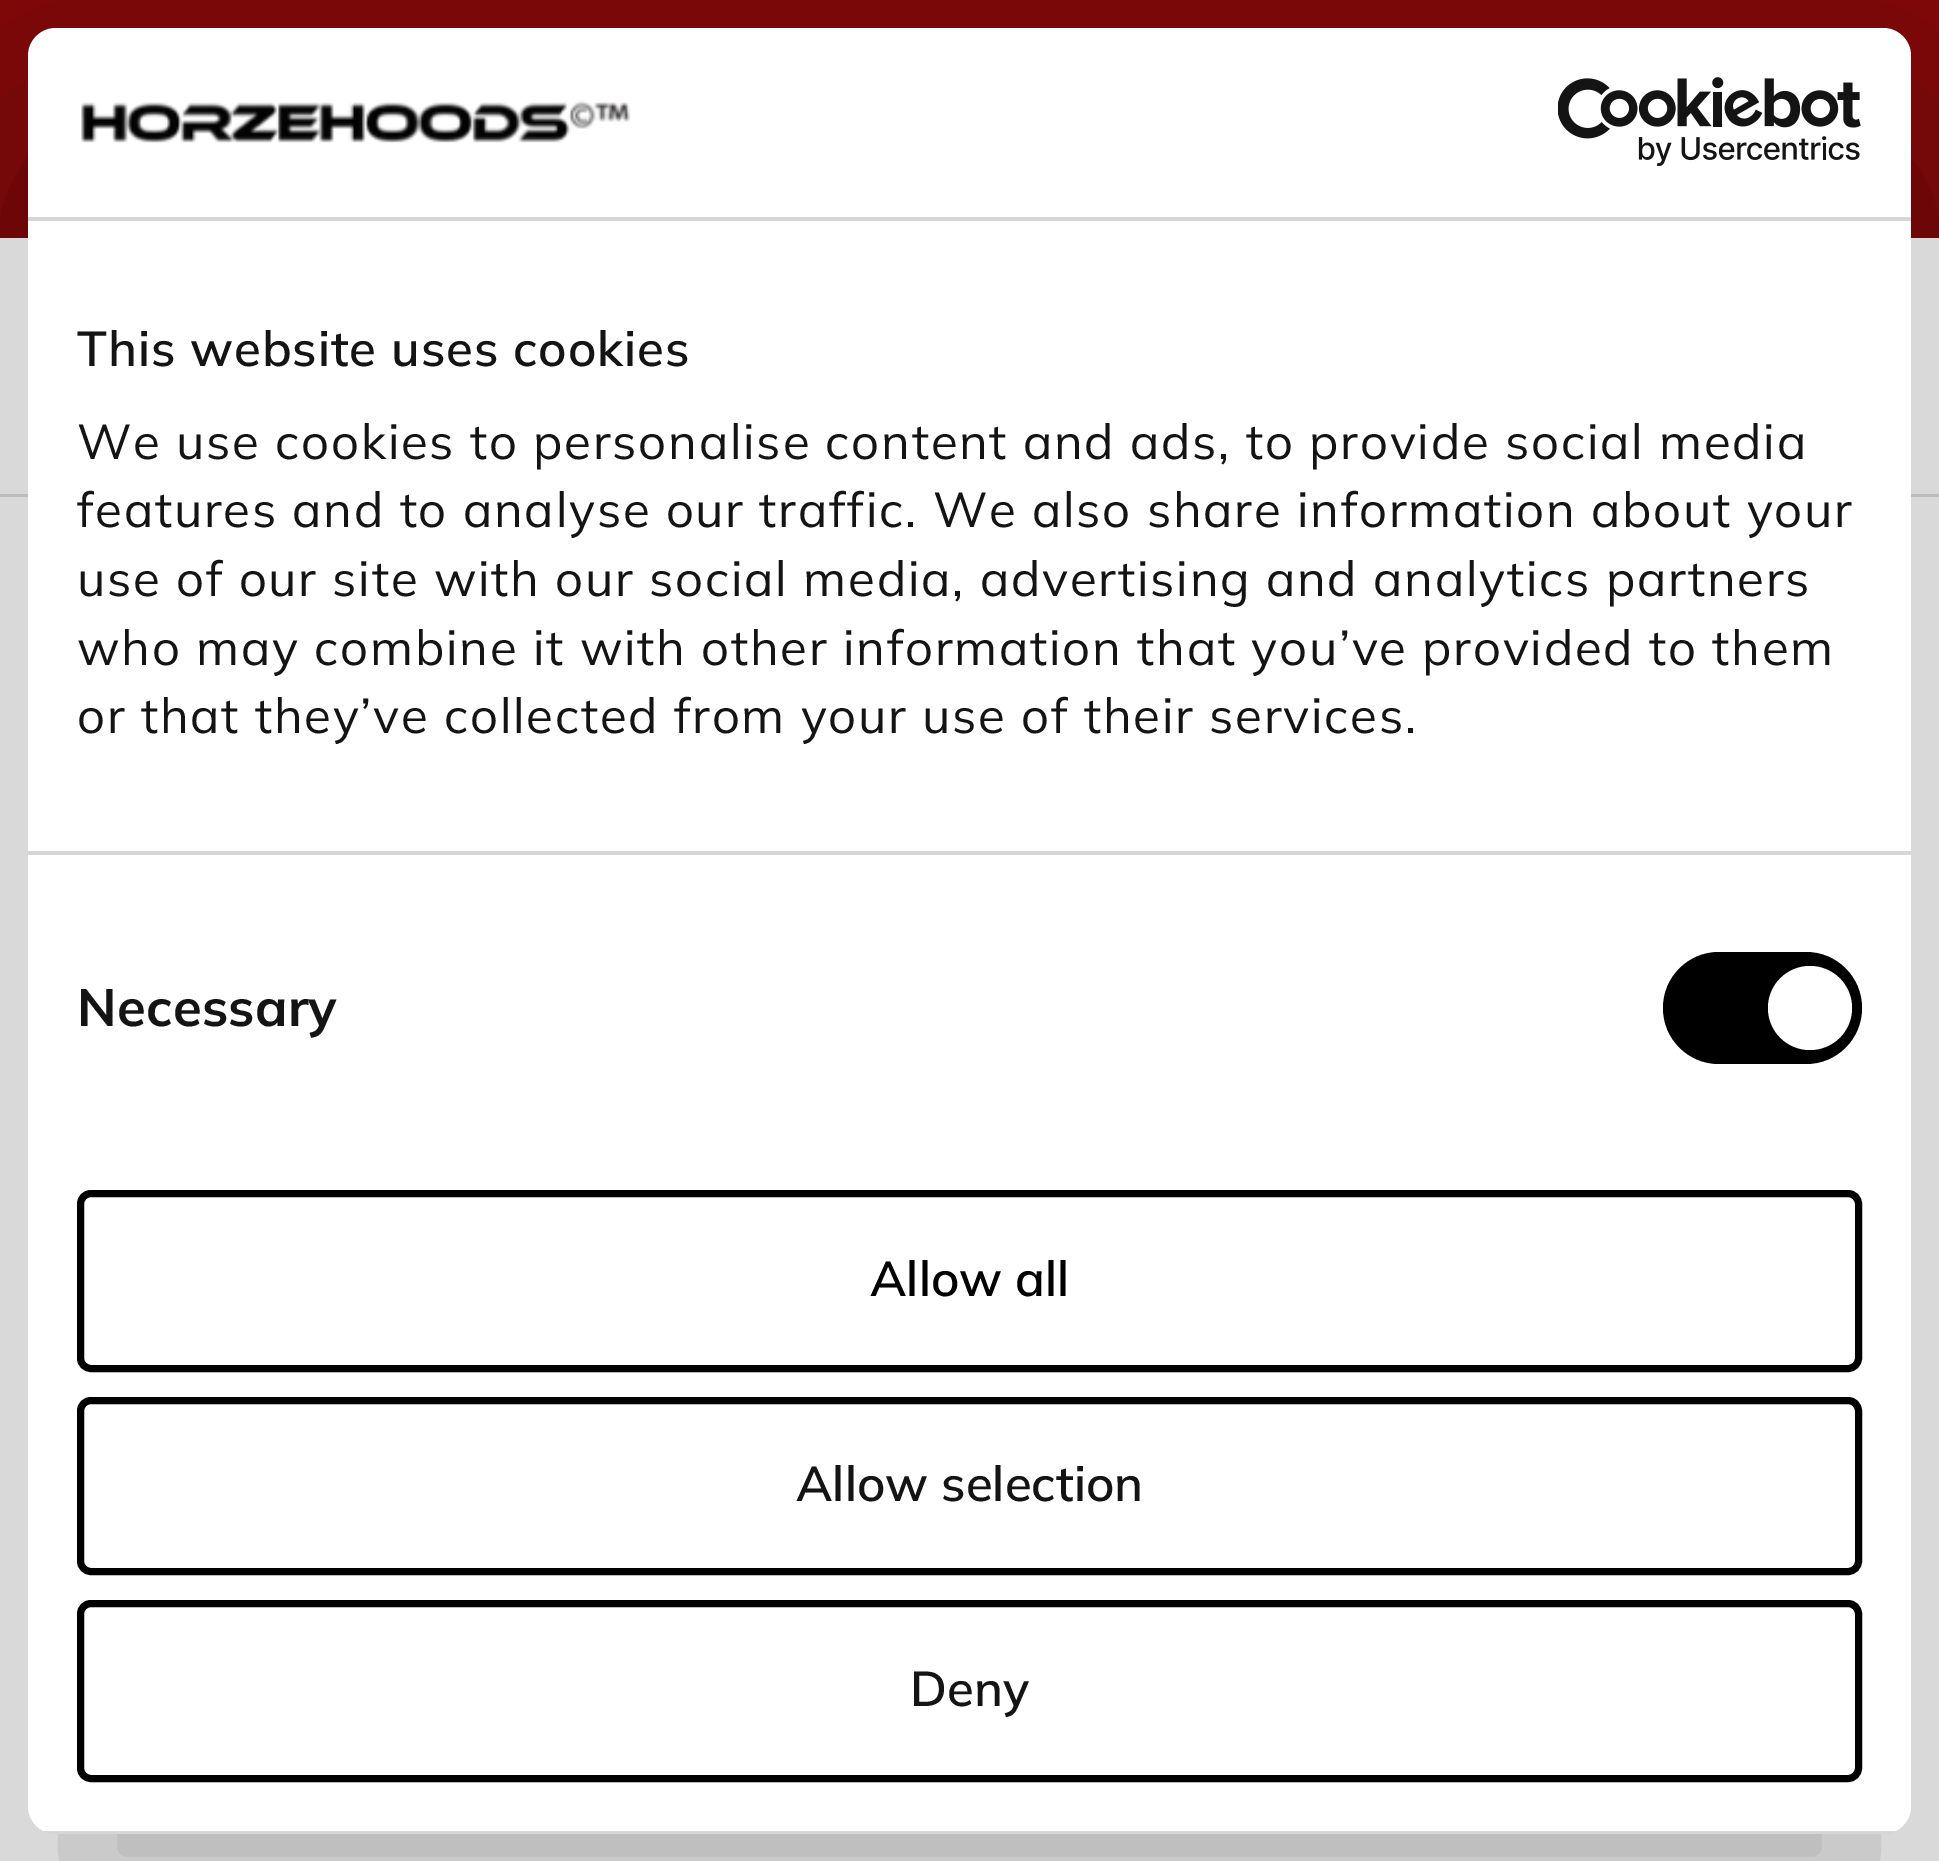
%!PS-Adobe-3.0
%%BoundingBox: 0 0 1939 1861
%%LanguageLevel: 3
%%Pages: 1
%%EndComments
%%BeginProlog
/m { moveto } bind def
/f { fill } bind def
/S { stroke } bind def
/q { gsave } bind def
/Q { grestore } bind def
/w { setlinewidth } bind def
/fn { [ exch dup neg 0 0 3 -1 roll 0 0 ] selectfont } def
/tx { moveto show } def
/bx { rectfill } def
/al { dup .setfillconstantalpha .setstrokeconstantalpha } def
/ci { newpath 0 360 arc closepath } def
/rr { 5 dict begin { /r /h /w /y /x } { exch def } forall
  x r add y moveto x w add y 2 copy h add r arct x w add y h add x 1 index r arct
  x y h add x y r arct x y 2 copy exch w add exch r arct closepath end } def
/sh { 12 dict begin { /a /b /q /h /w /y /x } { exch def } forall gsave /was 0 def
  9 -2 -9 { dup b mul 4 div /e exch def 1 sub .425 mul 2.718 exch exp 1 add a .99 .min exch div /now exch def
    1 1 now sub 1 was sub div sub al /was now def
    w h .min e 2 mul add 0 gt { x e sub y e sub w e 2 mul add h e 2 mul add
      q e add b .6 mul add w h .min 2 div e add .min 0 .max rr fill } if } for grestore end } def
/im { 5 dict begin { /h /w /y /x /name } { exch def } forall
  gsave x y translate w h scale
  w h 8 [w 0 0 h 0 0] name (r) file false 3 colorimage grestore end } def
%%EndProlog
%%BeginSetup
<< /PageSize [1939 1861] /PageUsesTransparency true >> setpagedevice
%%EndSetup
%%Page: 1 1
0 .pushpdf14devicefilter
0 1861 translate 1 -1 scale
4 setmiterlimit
1 setgray
0 0 1939 1861 bx
0.871 setgray
0 494 1939 3 bx
0.502 0.031 0.031 setrgbcolor
0 0 1939 238 bx
0 setgray
28 140 1883 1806 28 119 0.3 sh
1 setgray
28 28 1883 1806 28 rr f
0.839 setgray
28 217 1883 4 bx
(image0.raw) 81 100 550 43 im
(image1.raw) 1558 77 303 89 im
28 851 1883 4 bx
/Mulish-SemiBold 49 fn
0.078 setgray
77 366 m 0.9 0 (This website uses cookies) ashow
/Mulish-Regular 49 fn
77 459 m 1.75 0 (We use cookies to personalise content and ads, to provide social media) ashow
77 527 m 1.75 0 (features and to analyse our traffic. We also share information about your) ashow
77 596 m 1.75 0 (use of our site with our social media, advertising and analytics partners) ashow
77 665 m 1.75 0 (who may combine it with other information that you’ve provided to them) ashow
77 733 m 1.75 0 (or that they’ve collected from your use of their services.) ashow
/Mulish-Bold 52.5 fn
77 1026 m 0.25 0 (Necessary) ashow
0 setgray
1663 952 199 112 56 rr f
1 setgray
1810 1008 42 ci f
q
28 28 1883 1806 28 rr clip newpath
0.839 setgray
43 1831 1853 3 bx
Q
0 setgray
7 w
80.5 1193.5 1778 175 10.5 rr S
/Mulish-SemiBold 49 fn
(Allow all) 870 1296 tx
80.5 1400.5 1778 171 10.5 rr S
0.078 setgray
(Allow selection) 796 1501 tx
0 setgray
80.5 1603.5 1778 175 10.5 rr S
0.078 setgray
(Deny) 910 1706 tx
.poppdf14devicefilter showpage
%%EOF
